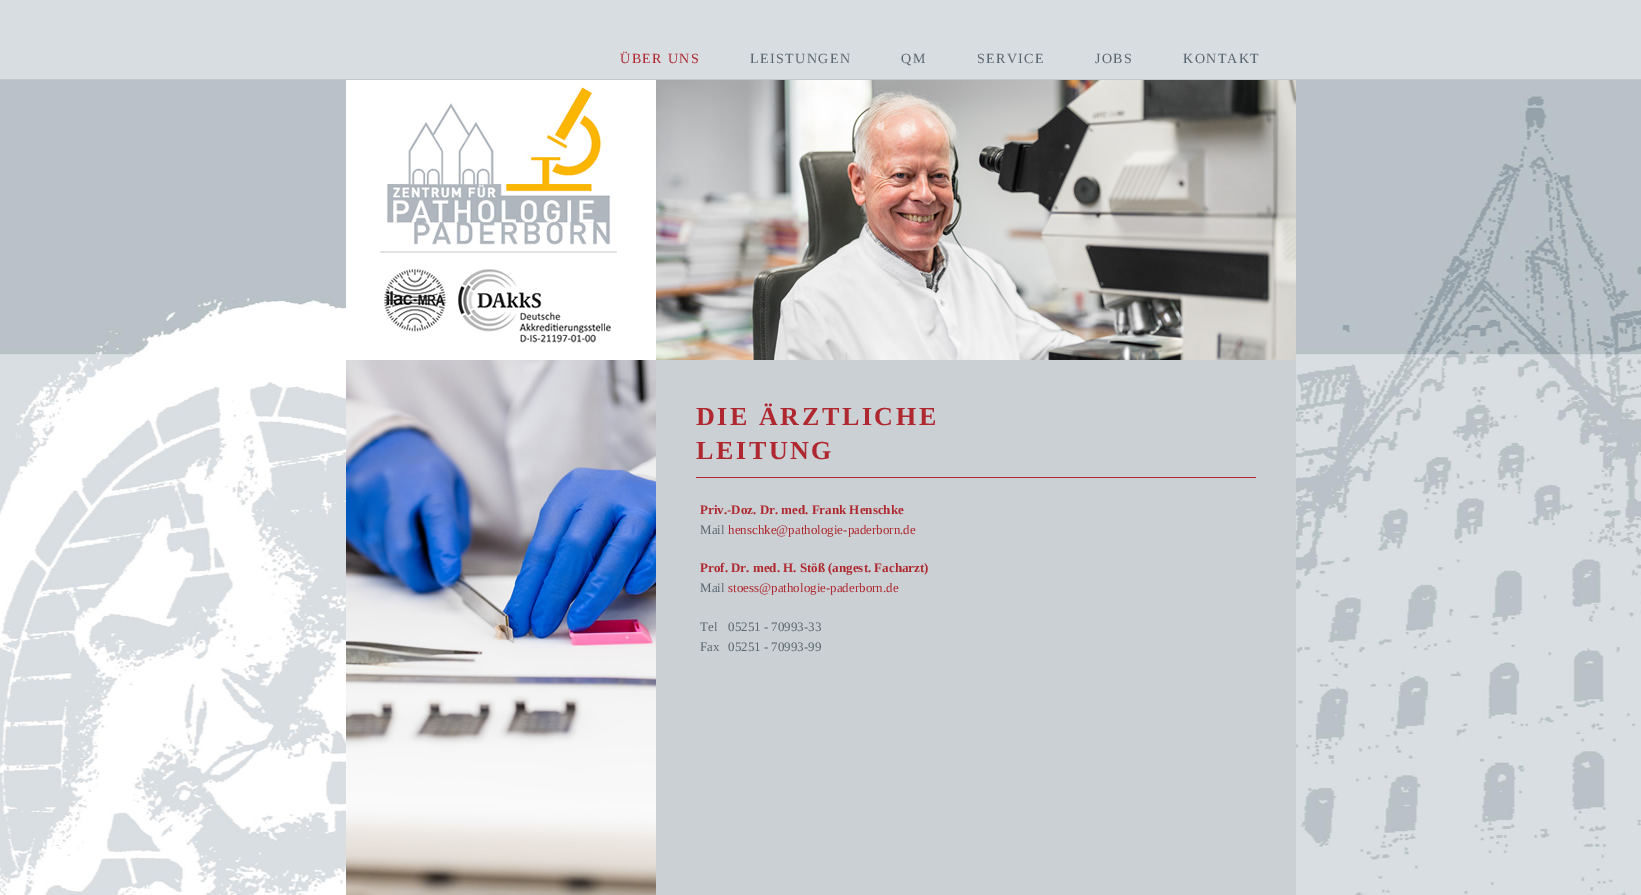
%!PS-Adobe-3.0
%%BoundingBox: 0 0 1641 895
%%LanguageLevel: 3
%%Pages: 1
%%EndComments
%%BeginProlog
/m { moveto } bind def
/fn { [ exch dup neg 0 0 3 -1 roll 0 0 ] selectfont } def
/tx { moveto show } def
/bx { rectfill } def
/im { 5 dict begin { /h /w /y /x /name } { exch def } forall
  gsave x y translate w h scale
  w h 8 [w 0 0 h 0 0] name (r) file false 3 colorimage grestore end } def
%%EndProlog
%%BeginSetup
<< /PageSize [1641 895] >> setpagedevice
%%EndSetup
%%Page: 1 1
0 895 translate 1 -1 scale
4 setmiterlimit
0.847 0.867 0.882 setrgbcolor
0 0 1641 895 bx
(image0.raw) 0 79 1641 816 im
/LiberationSerif-Regular 14 fn
0.686 0.153 0.184 setrgbcolor
620 63 m 1.4 0 (ÜBER UNS) ashow
0.357 0.404 0.439 setrgbcolor
750 63 m 1.4 0 (LEISTUNGEN) ashow
901 63 m 1.4 0 (QM) ashow
977 63 m 1.4 0 (SERVICE) ashow
1095 63 m 1.4 0 (JOBS) ashow
1183 63 m 1.4 0 (KONTAKT) ashow
1 setgray
346 80 310 280 bx
(image1.raw) 380 86 237 257 im
(image2.raw) 656 80 640 280 im
(image3.raw) 346 360 310 535 im
0.792 0.816 0.827 setrgbcolor
656 360 640 535 bx
/LiberationSerif-Bold 26 fn
0.686 0.153 0.184 setrgbcolor
696 425 m 2.6 0 (DIE ÄRZTLICHE) ashow
696 459 m 2.6 0 (LEITUNG) ashow
696 477 560 1 bx
/LiberationSerif-Bold 13 fn
(Priv.-Doz. Dr. med. Frank Henschke) 700 514 tx
/LiberationSerif-Regular 13 fn
0.357 0.404 0.439 setrgbcolor
(Mail) 700 534 tx
0.686 0.153 0.184 setrgbcolor
(henschke@pathologie-paderborn.de) 728 534 tx
/LiberationSerif-Bold 13 fn
(Prof. Dr. med. H. Stöß \(angest. Facharzt\)) 700 572 tx
/LiberationSerif-Regular 13 fn
0.357 0.404 0.439 setrgbcolor
(Mail) 700 592 tx
0.686 0.153 0.184 setrgbcolor
(stoess@pathologie-paderborn.de) 728 592 tx
0.357 0.404 0.439 setrgbcolor
(Tel) 700 631 tx
(05251 - 70993-33) 728 631 tx
(Fax) 700 651 tx
(05251 - 70993-99) 728 651 tx
showpage
%%EOF
